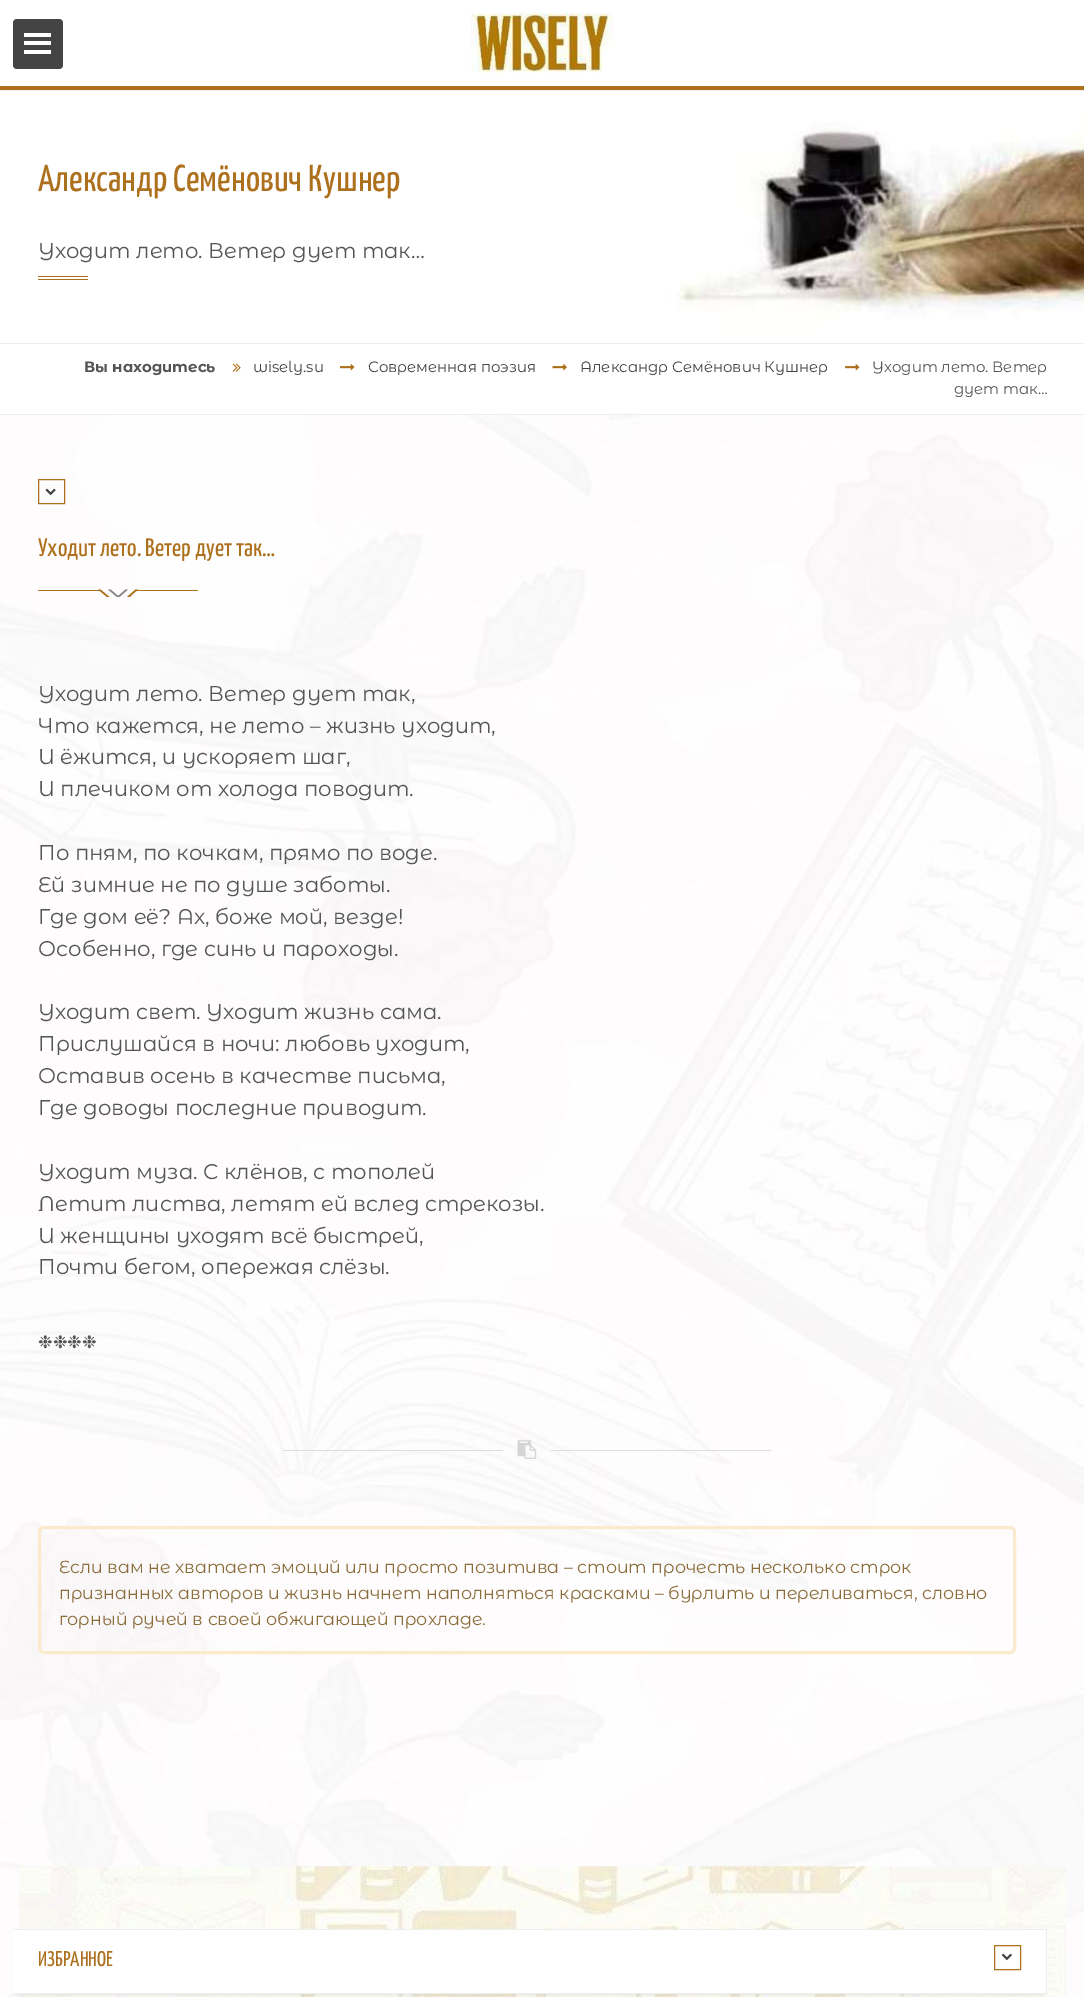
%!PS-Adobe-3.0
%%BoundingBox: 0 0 1084 1997
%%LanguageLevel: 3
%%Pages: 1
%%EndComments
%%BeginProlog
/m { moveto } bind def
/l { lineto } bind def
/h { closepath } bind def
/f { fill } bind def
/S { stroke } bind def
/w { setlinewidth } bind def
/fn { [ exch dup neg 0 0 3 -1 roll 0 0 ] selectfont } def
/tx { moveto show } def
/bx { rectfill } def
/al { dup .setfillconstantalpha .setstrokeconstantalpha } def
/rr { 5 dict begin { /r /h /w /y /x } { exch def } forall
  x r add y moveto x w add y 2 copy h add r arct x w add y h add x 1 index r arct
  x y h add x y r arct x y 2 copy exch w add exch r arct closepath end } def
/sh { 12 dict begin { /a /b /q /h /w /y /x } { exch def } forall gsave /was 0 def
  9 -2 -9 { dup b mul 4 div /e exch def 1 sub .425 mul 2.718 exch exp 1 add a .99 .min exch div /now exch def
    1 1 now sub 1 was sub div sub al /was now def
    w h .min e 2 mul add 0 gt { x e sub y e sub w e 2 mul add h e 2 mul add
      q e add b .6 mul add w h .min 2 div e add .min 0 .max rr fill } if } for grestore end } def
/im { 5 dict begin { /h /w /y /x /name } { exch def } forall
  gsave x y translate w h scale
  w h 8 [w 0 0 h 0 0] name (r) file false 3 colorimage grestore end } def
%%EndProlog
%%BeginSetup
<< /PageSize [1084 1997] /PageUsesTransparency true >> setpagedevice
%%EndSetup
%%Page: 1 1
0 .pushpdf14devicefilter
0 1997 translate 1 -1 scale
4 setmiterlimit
1 setgray
0 0 1084 1997 bx
0.267 setgray
13 19 50 50 4 rr f
1 setgray
24 33 27 4 bx
24 41 27 4 bx
24 50 27 4 bx
(image0.raw) 471 12 143 62 im
0.678 0.439 0.11 setrgbcolor
0 86 1084 4 bx
(image1.raw) 0 91 1084 252 im
0.933 setgray
0 90 1084 1 bx
0 343 1084 1 bx
/YanoneKaffeesatz-Regular 37.5 fn
0.678 0.439 0.11 setrgbcolor
(Александр Семёнович Кушнер) 38 191 tx
/MontserratAlternates-Regular 21.25 fn
0.333 setgray
(Уходит лето. Ветер дует так…) 38 258 tx
0.678 0.439 0.11 setrgbcolor
38 276 50 1 bx
38 279 50 1 bx
0.933 setgray
0 414 1084 1 bx
/MontserratAlternates-Bold 15 fn
0.333 setgray
(Вы находитесь) 84 372 tx
(image2.raw) 232 363 9 9 im
/MontserratAlternates-Regular 15 fn
0.267 setgray
(wisely.su) 253 372 tx
(image3.raw) 340 364 15 7 im
(Современная поэзия) 368 372 tx
(image4.raw) 552 364 15 7 im
(Александр Семёнович Кушнер) 580 372 tx
(image3.raw) 845 364 15 7 im
0.333 setgray
(Уходит лето. Ветер) 872 372 tx
(дует так…) 954 394 tx
(image5.raw) 0 415 1084 1582 im
0.678 0.439 0.11 setrgbcolor
38.5 479.5 26 24 rectstroke
(image6.raw) 45 488 11 8 im
/YanoneKaffeesatz-Regular 25.25 fn
(Уходит лето. Ветер дует так…) 38 556 tx
38 590 62 1 bx
0.533 setgray
108 589.5 m 110.5 589.5 l 119.5 597 l 117 597 l h f
0.678 0.439 0.11 setrgbcolor
98 589.5 m 100.5 589.5 l 109.5 597 l 107 597 l h 135.5 589.5 m 138 589.5 l 129.5 597 l 127 597 l h f
0.533 setgray
125.5 589.5 m 128 589.5 l 119.5 597 l 117 597 l h f
0.678 0.439 0.11 setrgbcolor
135 590 63 1 bx
/MontserratAlternates-Regular 21.25 fn
0.333 setgray
(Уходит лето. Ветер дует так,) 38 701 tx
(Что кажется, не лето – жизнь уходит,) 38 733 tx
(И ёжится, и ускоряет шаг,) 38 764 tx
(И плечиком от холода поводит.) 38 796 tx
(По пням, по кочкам, прямо по воде.) 38 860 tx
(Ей зимние не по душе заботы.) 38 892 tx
(Где дом её? Ах, боже мой, везде!) 38 924 tx
(Особенно, где синь и пароходы.) 38 956 tx
(Уходит свет. Уходит жизнь сама.) 38 1019 tx
(Прислушайся в ночи: любовь уходит,) 38 1051 tx
(Оставив осень в качестве письма,) 38 1083 tx
(Где доводы последние приводит.) 38 1115 tx
(Уходит муза. С клёнов, с тополей) 38 1179 tx
(Летит листва, летят ей вслед стрекозы.) 38 1211 tx
(И женщины уходят всё быстрей,) 38 1243 tx
(Почти бегом, опережая слёзы.) 38 1274 tx
/DejaVuSans-Regular 17.5 fn
(❉❉❉❉) 38 1348 tx
0.867 setgray
283 1450 220 1 bx
(image7.raw) 517 1440 20 19 im
551 1450 220 1 bx
0.98 0.922 0.8 setrgbcolor
3 w
39.5 1527.5 975 125 4.5 rr S
/MontserratAlternates-Regular 17.5 fn
0.541 0.427 0.231 setrgbcolor
(Если вам не хватает эмоций или просто позитива – стоит прочесть несколько строк) 59 1573 tx
(признанных авторов и жизнь начнет наполняться красками – бурлить и переливаться, словно) 59 1599 tx
(горный ручей в своей обжигающей прохладе.) 59 1625 tx
(image8.raw) 19 1866 1047 131 im
0 setgray
18 1940 1025 55 0 3 0.11 sh
1 setgray
13 1930 1033 63 bx
0.933 setgray
13 1929 1035 1 bx
1046 1929 1 65 bx
13 1993 1035 1 bx
/YanoneKaffeesatz-Regular 21.25 fn
0.678 0.439 0.11 setrgbcolor
(ИЗБРАННОЕ) 38 1966 tx
1 w
994.5 1945.5 26 24 rectstroke
(image9.raw) 1001 1953 11 8 im
.poppdf14devicefilter showpage
%%EOF
